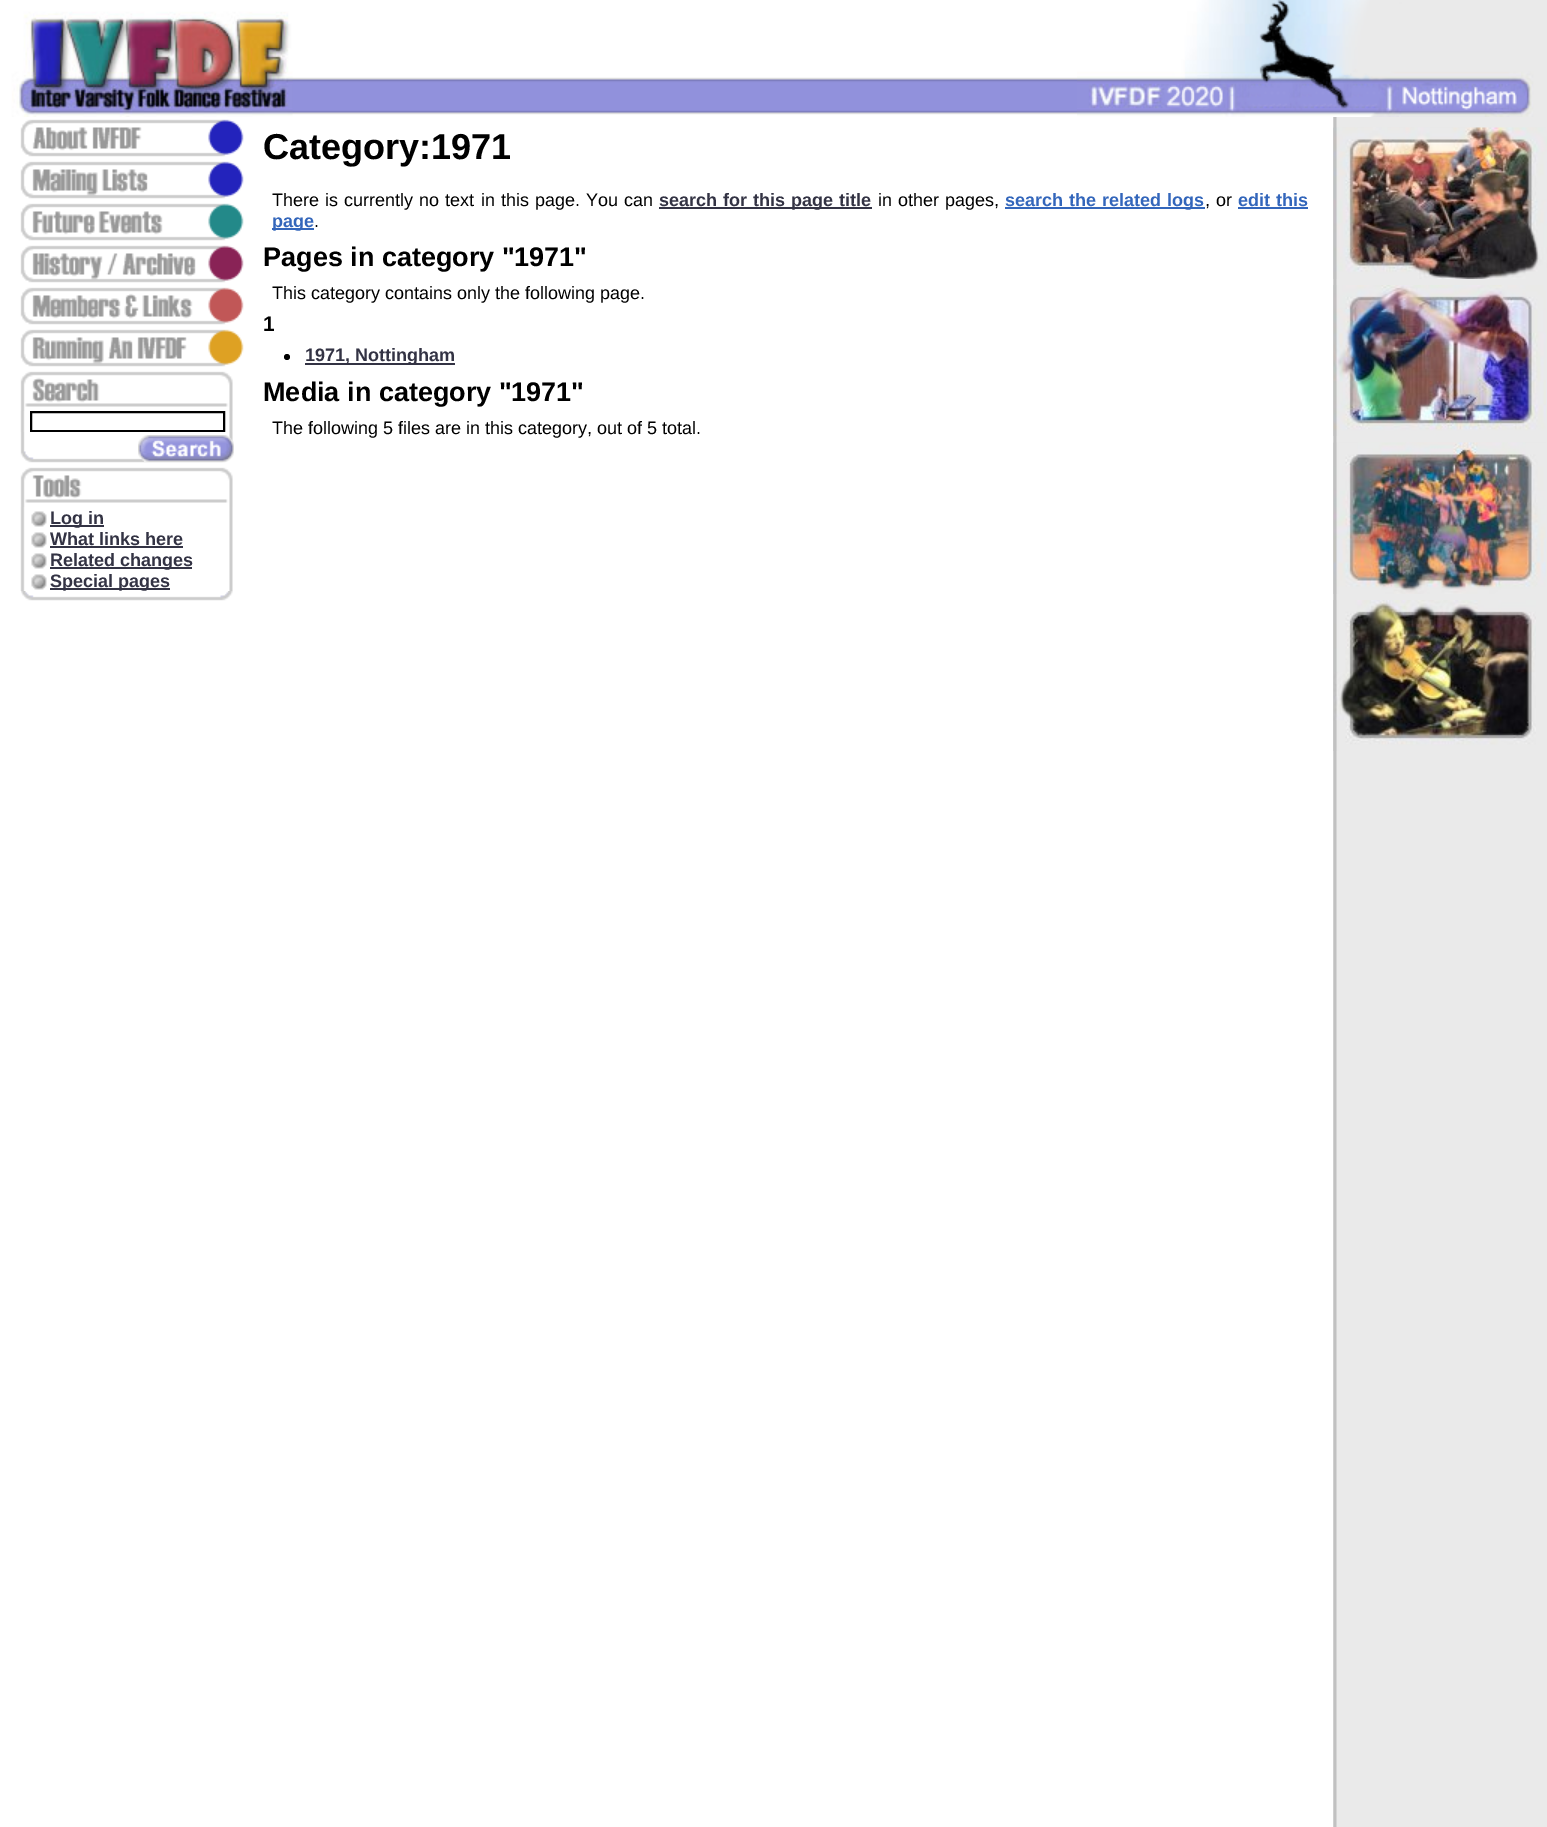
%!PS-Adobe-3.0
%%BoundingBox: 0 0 1547 1827
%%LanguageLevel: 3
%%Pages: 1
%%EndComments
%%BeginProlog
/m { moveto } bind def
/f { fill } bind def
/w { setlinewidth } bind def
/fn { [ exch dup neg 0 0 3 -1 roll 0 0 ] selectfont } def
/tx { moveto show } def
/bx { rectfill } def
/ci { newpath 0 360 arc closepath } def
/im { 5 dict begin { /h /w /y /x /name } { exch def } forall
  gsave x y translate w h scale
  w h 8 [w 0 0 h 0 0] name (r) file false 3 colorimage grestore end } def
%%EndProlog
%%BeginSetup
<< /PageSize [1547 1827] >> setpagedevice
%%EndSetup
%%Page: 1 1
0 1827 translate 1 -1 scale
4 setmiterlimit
1 setgray
0 0 1547 1827 bx
(image0.raw) 1334 117 213 1710 im
(image1.raw) 292 77 785 38 im
(image2.raw) 0 3 293 114 im
(image3.raw) 1077 0 470 117 im
/LiberationSans-Bold 36 fn
0 setgray
(Category:1971) 263 159 tx
/LiberationSans-Regular 18 fn
272 206 m 1.1 0 32 (There is currently no text in this page. You can) widthshow
0.2 0.2 0.267 setrgbcolor
659 207 213 2 bx
/LiberationSans-Bold 18 fn
659 206 m 1.1 0 32 (search for this page title) widthshow
/LiberationSans-Regular 18 fn
0 setgray
878 206 m 1.1 0 32 (in other pages,) widthshow
0.2 0.4 0.733 setrgbcolor
1005 207 200 2 bx
/LiberationSans-Bold 18 fn
1005 206 m 1.1 0 32 (search the related logs) widthshow
/LiberationSans-Regular 18 fn
0 setgray
1205 206 m 1 0 32 (, or) widthshow
0.2 0.4 0.733 setrgbcolor
1238 207 70 2 bx
/LiberationSans-Bold 18 fn
1238 206 m 1 0 32 (edit this) widthshow
272 228 42 2 bx
(page) 272 227 tx
/LiberationSans-Regular 18 fn
0 setgray
(.) 314 227 tx
/LiberationSans-Bold 27 fn
(Pages in category "1971") 263 266 tx
/LiberationSans-Regular 18 fn
(This category contains only the following page.) 272 299 tx
/LiberationSans-Bold 21 fn
(1) 263 331 tx
287 357 3 ci f
0.2 0.2 0.267 setrgbcolor
305 363 150 2 bx
/LiberationSans-Bold 18 fn
(1971, Nottingham) 305 361 tx
/LiberationSans-Bold 27 fn
0 setgray
(Media in category "1971") 263 401 tx
/LiberationSans-Regular 18 fn
(The following 5 files are in this category, out of 5 total.) 272 434 tx
0.816 setgray
1333 117 1 1710 bx
(image4.raw) 1333 127 214 152 im
(image5.raw) 1333 285 213 151 im
(image6.raw) 1333 442 213 152 im
(image7.raw) 1333 600 203 151 im
(image8.raw) 20 119 224 38 im
(image9.raw) 20 161 224 38 im
(image10.raw) 20 203 224 38 im
(image11.raw) 20 245 224 38 im
(image12.raw) 20 287 224 38 im
(image13.raw) 20 329 224 38 im
(image14.raw) 20 371 213 40 im
(image15.raw) 20 411 213 21 im
0 setgray
2 w
31 412 193 19 rectstroke
(image16.raw) 20 432 213 31 im
(image17.raw) 138 435 96 27 im
(image18.raw) 20 467 213 40 im
(image15.raw) 20 507 213 21 im
(image19.raw) 31 511 16 16 im
0.2 0.2 0.267 setrgbcolor
50 525 54 2 bx
/LiberationSans-Bold 18 fn
(Log in) 50 524 tx
(image15.raw) 20 528 213 21 im
(image19.raw) 31 532 16 16 im
(What links here) 50 545 tx
50 546 133 2 bx
(image15.raw) 20 549 213 21 im
(image19.raw) 31 553 16 16 im
50 567 142 2 bx
(Related changes) 50 566 tx
(image15.raw) 20 570 213 21 im
(image19.raw) 31 574 16 16 im
50 588 120 2 bx
(Special pages) 50 587 tx
(image20.raw) 21 591 212 10 im
showpage
%%EOF
